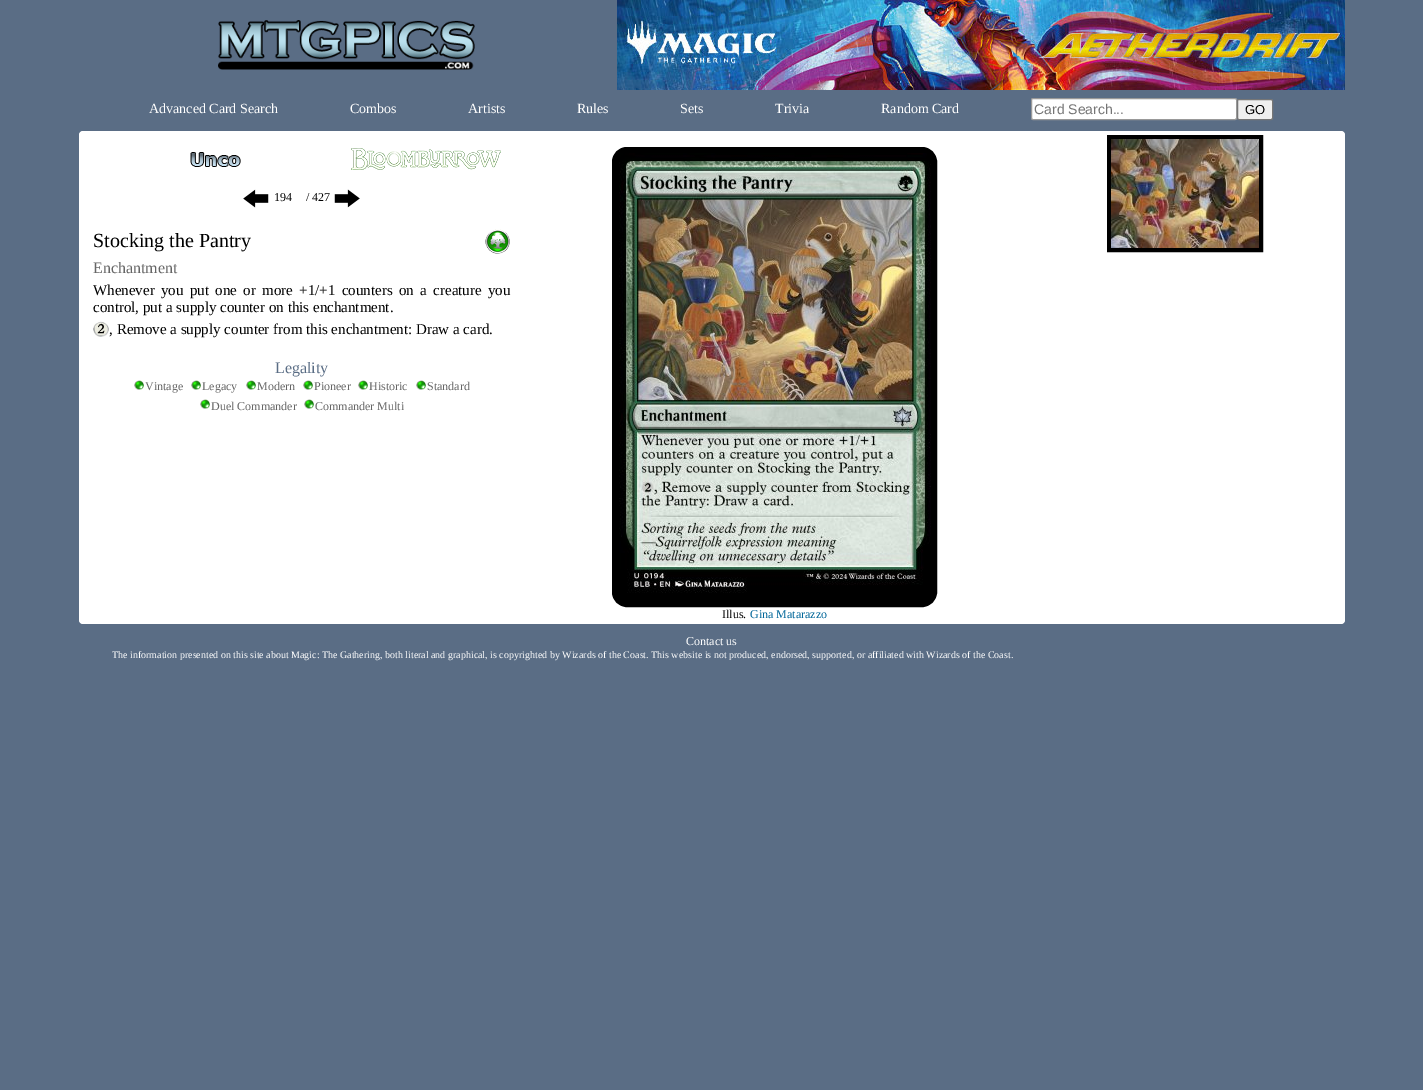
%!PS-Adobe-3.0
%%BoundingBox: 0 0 1423 1090
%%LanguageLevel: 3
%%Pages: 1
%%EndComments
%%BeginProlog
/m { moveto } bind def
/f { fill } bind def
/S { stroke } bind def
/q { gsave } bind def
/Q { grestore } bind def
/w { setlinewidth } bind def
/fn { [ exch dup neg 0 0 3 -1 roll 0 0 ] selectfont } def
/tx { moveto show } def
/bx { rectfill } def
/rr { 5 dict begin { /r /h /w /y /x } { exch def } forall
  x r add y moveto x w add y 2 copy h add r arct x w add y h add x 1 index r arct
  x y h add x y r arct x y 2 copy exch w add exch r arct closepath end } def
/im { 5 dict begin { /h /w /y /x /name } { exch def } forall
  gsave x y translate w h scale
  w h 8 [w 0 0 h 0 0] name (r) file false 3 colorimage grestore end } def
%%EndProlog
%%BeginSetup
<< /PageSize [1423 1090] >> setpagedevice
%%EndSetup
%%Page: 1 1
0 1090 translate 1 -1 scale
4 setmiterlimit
0.353 0.427 0.522 setrgbcolor
0 0 1423 1090 bx
(image0.raw) 218 20 257 50 im
(image1.raw) 617 0 728 90 im
/LiberationSerif-Regular 14 fn
1 setgray
(Advanced Card Search) 149 113 tx
(Combos) 350 113 tx
(Artists) 468 113 tx
(Rules) 577 113 tx
(Sets) 680 113 tx
(Trivia) 775 113 tx
(Random Card) 881 113 tx
1031.5 98.5 205 21 1.5 rr q f Q
0.6 setgray
S
/LiberationSans-Regular 14 fn
0.459 setgray
(Card Search...) 1034 114 tx
0.937 setgray
1237.5 99.5 35 20 1.5 rr q f Q
0.463 setgray
S
/LiberationSans-Regular 13 fn
0 setgray
(GO) 1245 114 tx
1 setgray
79 131 1266 493 4 rr f
(image2.raw) 190 152 51 15 im
(image3.raw) 351 148 150 22 im
(image4.raw) 243 189 26 19 im
/LiberationSerif-Regular 12 fn
0 setgray
(194) 274 201 tx
(/ 427) 306 201 tx
(image5.raw) 334 189 26 19 im
/LiberationSerif-Regular 20 fn
(Stocking the Pantry) 93 247 tx
(image6.raw) 485 229 25 25 im
/LiberationSerif-Regular 16 fn
0.4 setgray
(Enchantment) 93 273 tx
/LiberationSerif-Regular 15 fn
0 setgray
93 295 m 2.6 0 32 (Whenever you put one or more +1/+1 counters on a creature you) widthshow
(control, put a supply counter on this enchantment.) 93 312 tx
(image7.raw) 93 321 16 16 im
(, Remove a supply counter from this enchantment: Draw a card.) 109 334 tx
/LiberationSerif-Regular 16 fn
0.353 0.427 0.522 setrgbcolor
(Legality) 275 373 tx
(image8.raw) 134 380 10 10 im
/LiberationSerif-Regular 12 fn
0.4 setgray
(Vintage) 145 390 tx
(image8.raw) 191 380 10 10 im
(Legacy) 202 390 tx
(image8.raw) 246 380 10 10 im
(Modern) 257 390 tx
(image8.raw) 303 380 10 10 im
(Pioneer) 314 390 tx
(image8.raw) 358 380 10 10 im
(Historic) 369 390 tx
(image8.raw) 416 380 10 10 im
(Standard) 427 390 tx
(image8.raw) 200 399 10 10 im
(Duel Commander) 211 410 tx
(image8.raw) 304 399 10 10 im
(Commander Multi) 315 410 tx
0 setgray
4 w
1109 137 152 113 rectstroke
(image9.raw) 1111 139 148 109 im
612.5 147.5 324 459 14.5 rr q f Q
1 w
S
(image10.raw) 619 153 312 440 im
(Illus.) 722 618 tx
0 0.4 0.6 setrgbcolor
(Gina Matarazzo) 750 618 tx
1 setgray
(Contact us) 686 645 tx
/LiberationSerif-Regular 10 fn
(The information presented on this site about Magic: The Gathering, both literal and graphical, is copyrighted by Wizards of the Coast. This website is not produced, endorsed, supported, or affiliated with Wizards of the Coast.) 112 658 tx
showpage
%%EOF
